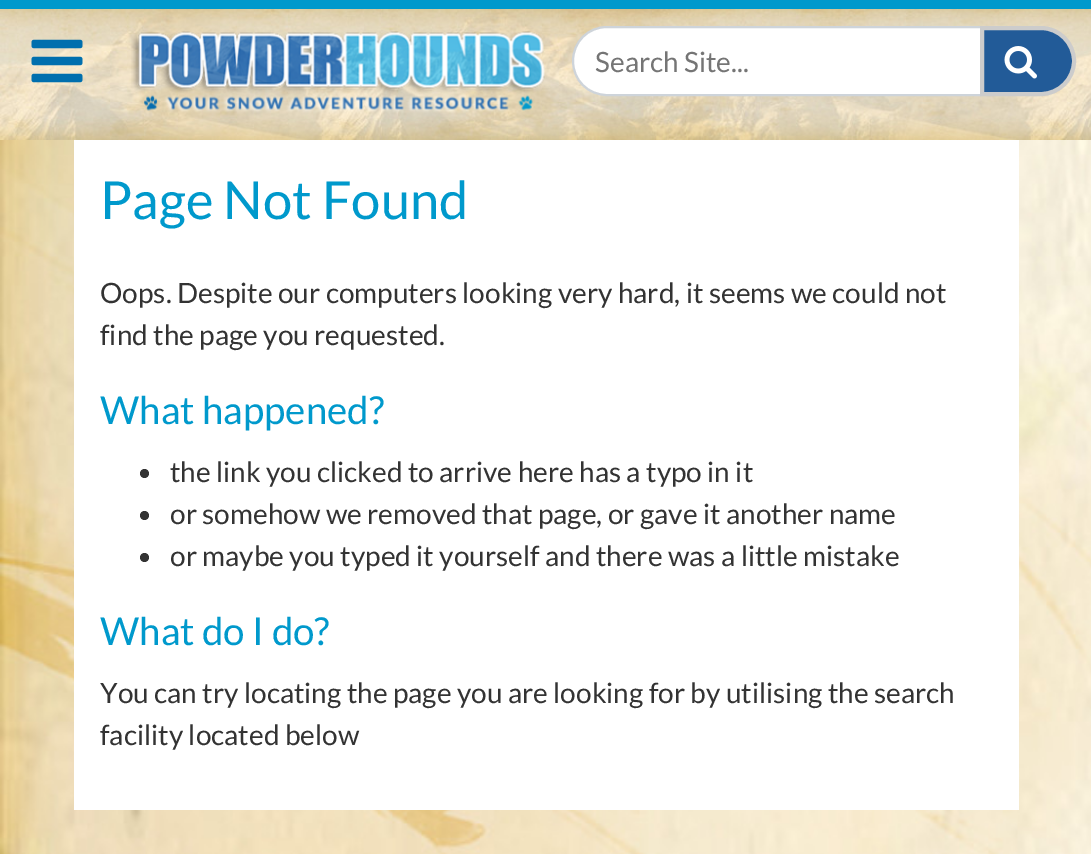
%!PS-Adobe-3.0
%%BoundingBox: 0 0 1091 854
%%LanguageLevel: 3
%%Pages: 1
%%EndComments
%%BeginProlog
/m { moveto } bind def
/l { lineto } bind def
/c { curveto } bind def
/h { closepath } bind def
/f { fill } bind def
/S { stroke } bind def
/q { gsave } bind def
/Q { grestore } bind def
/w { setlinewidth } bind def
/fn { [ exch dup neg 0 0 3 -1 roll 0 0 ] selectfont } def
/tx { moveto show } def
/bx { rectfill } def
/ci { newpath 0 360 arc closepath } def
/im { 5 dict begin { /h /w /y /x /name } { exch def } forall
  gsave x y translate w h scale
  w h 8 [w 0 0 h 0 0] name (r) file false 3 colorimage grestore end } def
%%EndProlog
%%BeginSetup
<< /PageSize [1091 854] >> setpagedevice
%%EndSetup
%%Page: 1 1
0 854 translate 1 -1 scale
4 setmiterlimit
1 setgray
0 0 1091 854 bx
(image0.raw) 0 9 1091 131 im
0 0.6 0.8 setrgbcolor
0 0 1091 9 bx
(image1.raw) 31 39 52 44 im
(image2.raw) 131 31 414 82 im
1 setgray
607 27 m 981 27 l 981 95 l 607 95 l 588 95 573 80 573 61 c 573 42 588 27 607 27 c h q f Q
0.808 0.831 0.855 setrgbcolor
2 w
S
/Lato-Regular 28 fn
0.459 setgray
(Search Site...) 595 72 tx
0.133 0.357 0.596 setrgbcolor
982 28 m 1041 28 l 1059 28 1074 43 1074 61 c 1074 79 1059 94 1041 94 c 982 94 l h q f Q
0.8 setgray
4 w
S
(image3.raw) 1004 46 33 33 im
(image4.raw) 0 140 1091 714 im
1 setgray
74 140 945 670 bx
/Lato-Regular 52.5 fn
0 0.6 0.8 setrgbcolor
(Page Not Found) 100 219 tx
/Lato-Regular 28 fn
0.2 setgray
(Oops. Despite our computers looking very hard, it seems we could not) 100 303 tx
(find the page you requested.) 100 345 tx
/Lato-Regular 38.5 fn
0 0.6 0.8 setrgbcolor
(What happened?) 100 424 tx
0.2 setgray
144.5 473.5 4.5 ci f
/Lato-Regular 28 fn
(the link you clicked to arrive here has a typo in it) 170 482 tx
144.5 515.5 4.5 ci f
(or somehow we removed that page, or gave it another name) 170 524 tx
144.5 557.5 4.5 ci f
(or maybe you typed it yourself and there was a little mistake) 170 566 tx
/Lato-Regular 38.5 fn
0 0.6 0.8 setrgbcolor
(What do I do?) 100 645 tx
/Lato-Regular 28 fn
0.2 setgray
(You can try locating the page you are looking for by utilising the search) 100 703 tx
(facility located below) 100 745 tx
showpage
%%EOF
